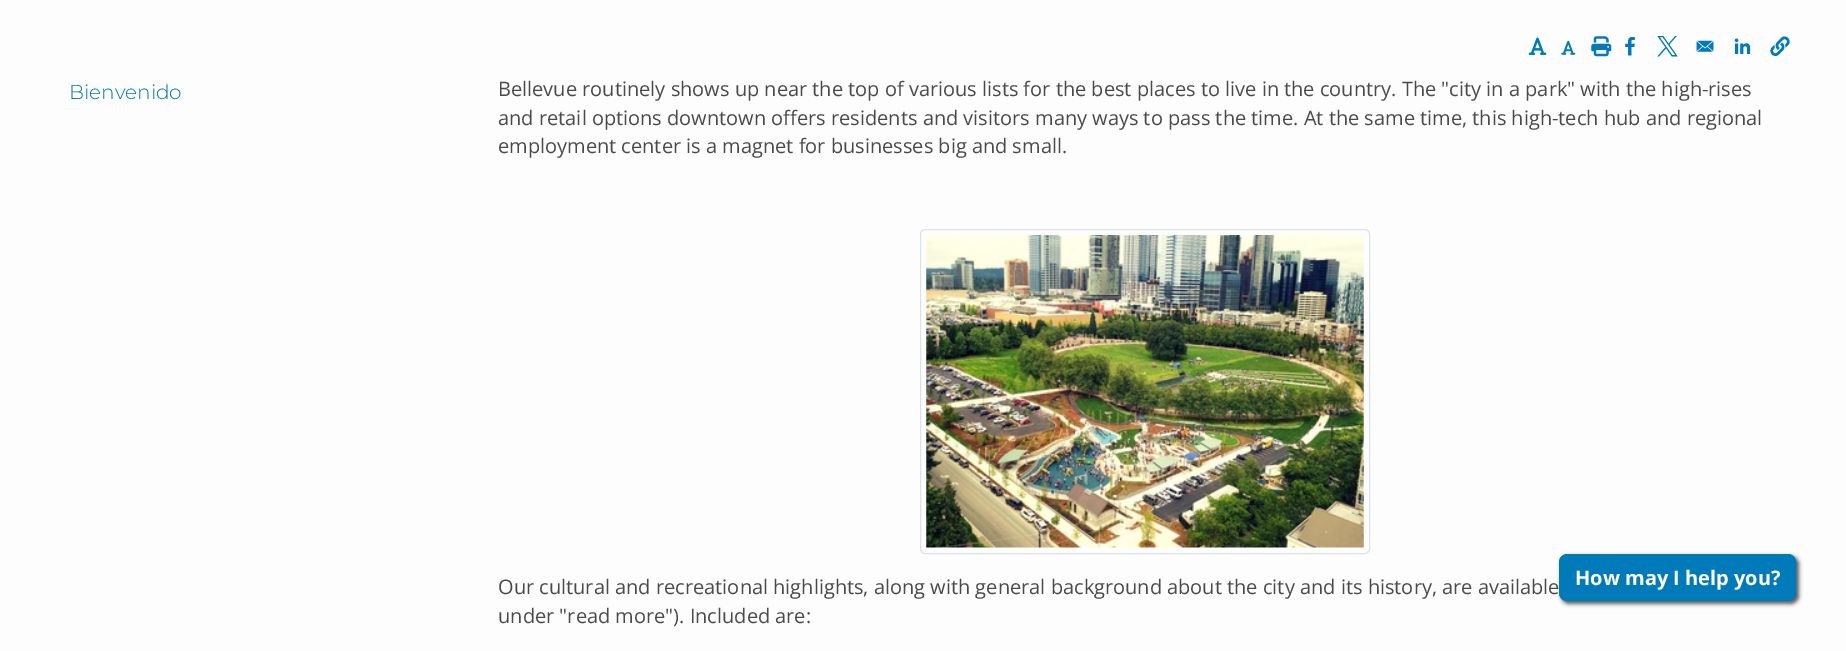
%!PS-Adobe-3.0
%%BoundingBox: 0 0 1846 651
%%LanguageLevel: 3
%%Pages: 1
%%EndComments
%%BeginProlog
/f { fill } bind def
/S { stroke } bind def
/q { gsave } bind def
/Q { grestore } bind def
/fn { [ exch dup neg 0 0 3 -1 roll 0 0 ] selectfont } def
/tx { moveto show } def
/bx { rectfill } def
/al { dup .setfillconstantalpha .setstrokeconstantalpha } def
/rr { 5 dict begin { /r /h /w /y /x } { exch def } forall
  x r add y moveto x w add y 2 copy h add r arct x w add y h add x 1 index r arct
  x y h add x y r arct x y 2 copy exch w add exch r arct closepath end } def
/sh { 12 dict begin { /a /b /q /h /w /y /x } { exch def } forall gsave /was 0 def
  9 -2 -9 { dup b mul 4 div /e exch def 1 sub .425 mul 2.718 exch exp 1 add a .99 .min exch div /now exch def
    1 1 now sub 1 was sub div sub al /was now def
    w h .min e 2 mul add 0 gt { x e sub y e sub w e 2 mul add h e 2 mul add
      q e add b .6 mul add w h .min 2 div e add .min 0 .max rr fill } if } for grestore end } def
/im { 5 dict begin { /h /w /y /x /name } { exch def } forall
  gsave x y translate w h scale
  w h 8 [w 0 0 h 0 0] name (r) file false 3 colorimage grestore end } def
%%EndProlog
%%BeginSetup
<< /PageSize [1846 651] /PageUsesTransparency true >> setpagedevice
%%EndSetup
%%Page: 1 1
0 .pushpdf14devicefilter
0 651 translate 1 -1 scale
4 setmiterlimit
0.992 setgray
0 0 1846 651 bx
(image0.raw) 1528 37 19 18 im
(image1.raw) 1561 40 15 15 im
(image2.raw) 1591 36 21 21 im
(image3.raw) 1625 37 10 19 im
(image4.raw) 1657 36 21 21 im
(image5.raw) 1696 40 18 12 im
(image6.raw) 1734 38 17 16 im
(image7.raw) 1770 36 20 20 im
/Montserrat-Light 20 fn
0 0.478 0.722 setrgbcolor
(Bienvenido) 69 99 tx
/OpenSans-Regular 20 fn
0.286 0.29 0.298 setrgbcolor
(Bellevue routinely shows up near the top of various lists for the best places to live in the country. The "city in a park" with the high-rises) 498 96 tx
(and retail options downtown offers residents and visitors many ways to pass the time. At the same time, this high-tech hub and regional) 498 125 tx
(employment center is a magnet for businesses big and small.) 498 153 tx
0.871 0.886 0.902 setrgbcolor
920.5 229.5 449 324 4.5 rr S
(image8.raw) 926 235 438 313 im
0.286 0.29 0.298 setrgbcolor
(Our cultural and recreational highlights, along with general background about the city and its history, are available) 498 594 tx
(under "read more"\). Included are:) 498 623 tx
0.369 0.357 0.357 setrgbcolor
1561 556 238 48 8 2 1 sh
0 0.478 0.722 setrgbcolor
1559.5 554.5 236 46 7.5 rr q f Q
S
/OpenSans-Bold 20 fn
1 setgray
(How may I help you?) 1575 585 tx
.poppdf14devicefilter showpage
%%EOF
